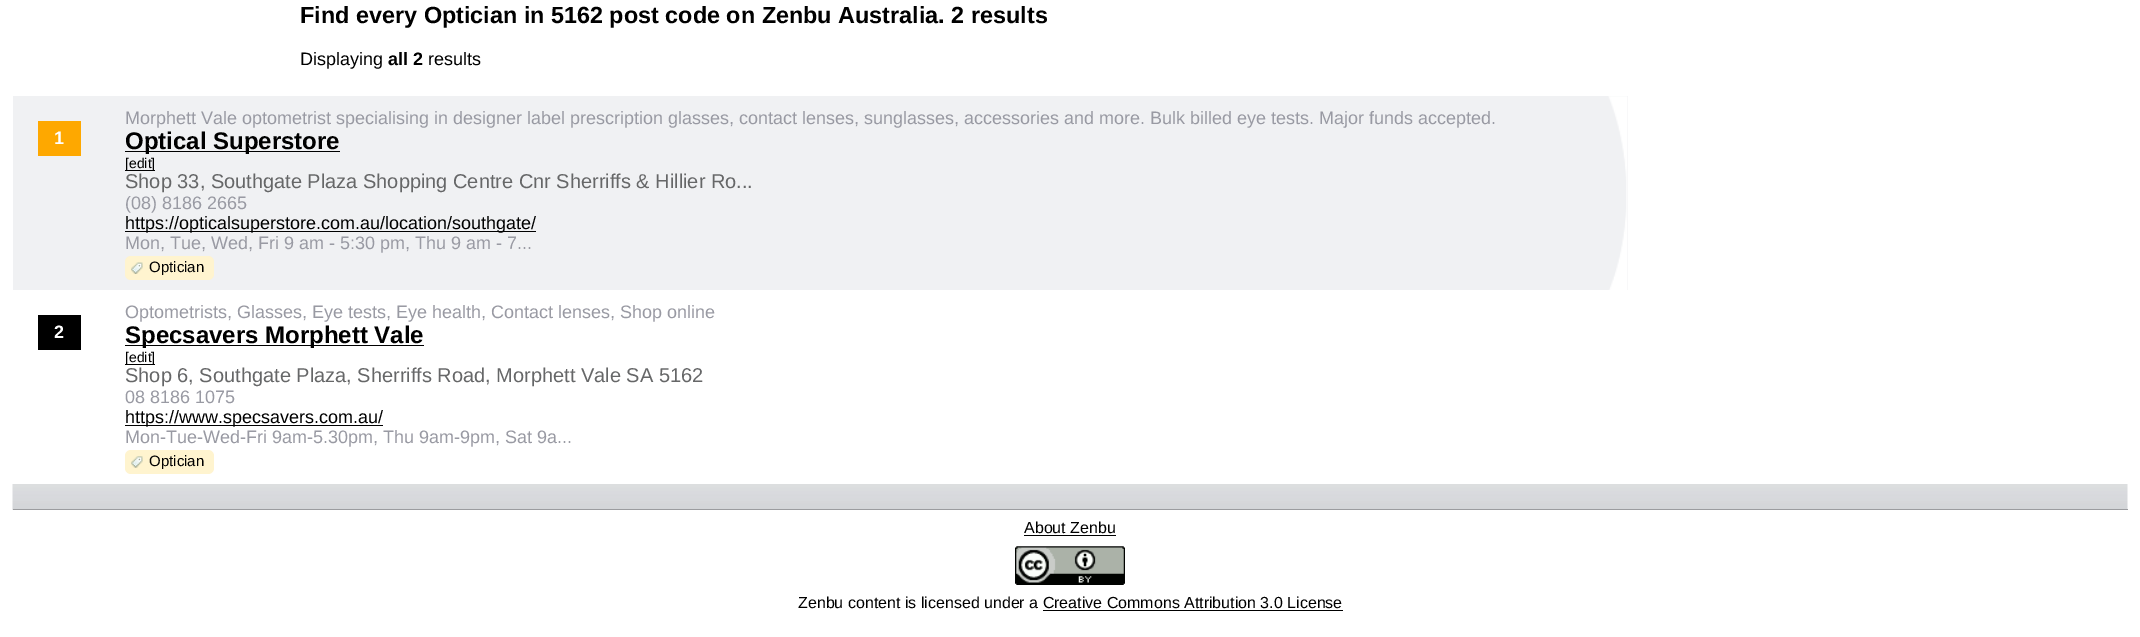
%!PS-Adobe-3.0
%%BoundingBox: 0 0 2140 637
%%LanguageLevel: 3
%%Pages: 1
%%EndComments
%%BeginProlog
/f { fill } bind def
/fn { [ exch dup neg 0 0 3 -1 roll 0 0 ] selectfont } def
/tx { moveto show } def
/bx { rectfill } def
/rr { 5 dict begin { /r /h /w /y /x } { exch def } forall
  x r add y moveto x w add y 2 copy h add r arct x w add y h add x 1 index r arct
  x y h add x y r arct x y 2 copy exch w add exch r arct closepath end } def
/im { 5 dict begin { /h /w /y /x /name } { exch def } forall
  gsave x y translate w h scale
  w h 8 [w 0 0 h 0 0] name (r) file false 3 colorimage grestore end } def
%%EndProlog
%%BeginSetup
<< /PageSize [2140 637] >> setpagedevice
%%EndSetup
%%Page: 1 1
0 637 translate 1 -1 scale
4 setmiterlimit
1 setgray
0 0 2140 637 bx
/LiberationSans-Bold 23.4 fn
0 setgray
(Find every Optician in 5162 post code on Zenbu Australia. 2 results) 300 23 tx
/LiberationSans-Regular 18 fn
(Displaying) 300 65 tx
/LiberationSans-Bold 18 fn
(all 2) 388 65 tx
/LiberationSans-Regular 18 fn
(results) 428 65 tx
0.941 0.945 0.953 setrgbcolor
13 96 1615 194 bx
(image0.raw) 1608 96 20 194 im
0.996 0.659 0 setrgbcolor
38 121 43 35 bx
/LiberationSans-Bold 18 fn
1 setgray
(1) 54 144 tx
/LiberationSans-Regular 18 fn
0.6 0.604 0.639 setrgbcolor
(Morphett Vale optometrist specialising in designer label prescription glasses, contact lenses, sunglasses, accessories and more. Bulk billed eye tests. Major funds accepted.) 125 124 tx
0 setgray
125 151 215 1 bx
/LiberationSans-Bold 24 fn
(Optical Superstore) 125 149 tx
125 170 30 1 bx
/LiberationSans-Regular 14 fn
([edit]) 125 168 tx
/LiberationSans-Regular 20 fn
0.4 0.404 0.408 setrgbcolor
(Shop 33, Southgate Plaza Shopping Centre Cnr Sherriffs & Hillier Ro...) 125 188 tx
/LiberationSans-Regular 18 fn
0.6 0.604 0.639 setrgbcolor
(\(08\) 8186 2665) 125 209 tx
0 setgray
125 231 411 1 bx
(https://opticalsuperstore.com.au/location/southgate/) 125 229 tx
0.6 0.604 0.639 setrgbcolor
(Mon, Tue, Wed, Fri 9 am - 5:30 pm, Thu 9 am - 7...) 125 249 tx
1 0.957 0.812 setrgbcolor
125 256 89 24 6 rr f
(image1.raw) 131 262 12 12 im
/LiberationSans-Regular 15 fn
0 setgray
(Optician) 149 272 tx
38 315 43 35 bx
/LiberationSans-Bold 18 fn
1 setgray
(2) 54 338 tx
/LiberationSans-Regular 18 fn
0.6 0.604 0.639 setrgbcolor
(Optometrists, Glasses, Eye tests, Eye health, Contact lenses, Shop online) 125 318 tx
0 setgray
125 345 299 1 bx
/LiberationSans-Bold 24 fn
(Specsavers Morphett Vale) 125 343 tx
125 364 30 1 bx
/LiberationSans-Regular 14 fn
([edit]) 125 362 tx
/LiberationSans-Regular 20 fn
0.4 0.404 0.408 setrgbcolor
(Shop 6, Southgate Plaza, Sherriffs Road, Morphett Vale SA 5162) 125 382 tx
/LiberationSans-Regular 18 fn
0.6 0.604 0.639 setrgbcolor
(08 8186 1075) 125 403 tx
0 setgray
125 425 258 1 bx
(https://www.specsavers.com.au/) 125 423 tx
0.6 0.604 0.639 setrgbcolor
(Mon-Tue-Wed-Fri 9am-5.30pm, Thu 9am-9pm, Sat 9a...) 125 443 tx
1 0.957 0.812 setrgbcolor
125 450 89 24 6 rr f
(image2.raw) 131 456 12 12 im
/LiberationSans-Regular 15 fn
0 setgray
(Optician) 149 466 tx
(image3.raw) 12 484 2116 26 im
0.608 0.612 0.624 setrgbcolor
13 509 2115 1 bx
/LiberationSans-Regular 16 fn
0 setgray
(About Zenbu) 1024 533 tx
1024 535 92 1 bx
(image4.raw) 1015 546 110 39 im
(Zenbu content is licensed under a Creative Commons Attribution 3.0 License) 798 608 tx
1043 610 300 1 bx
showpage
%%EOF
